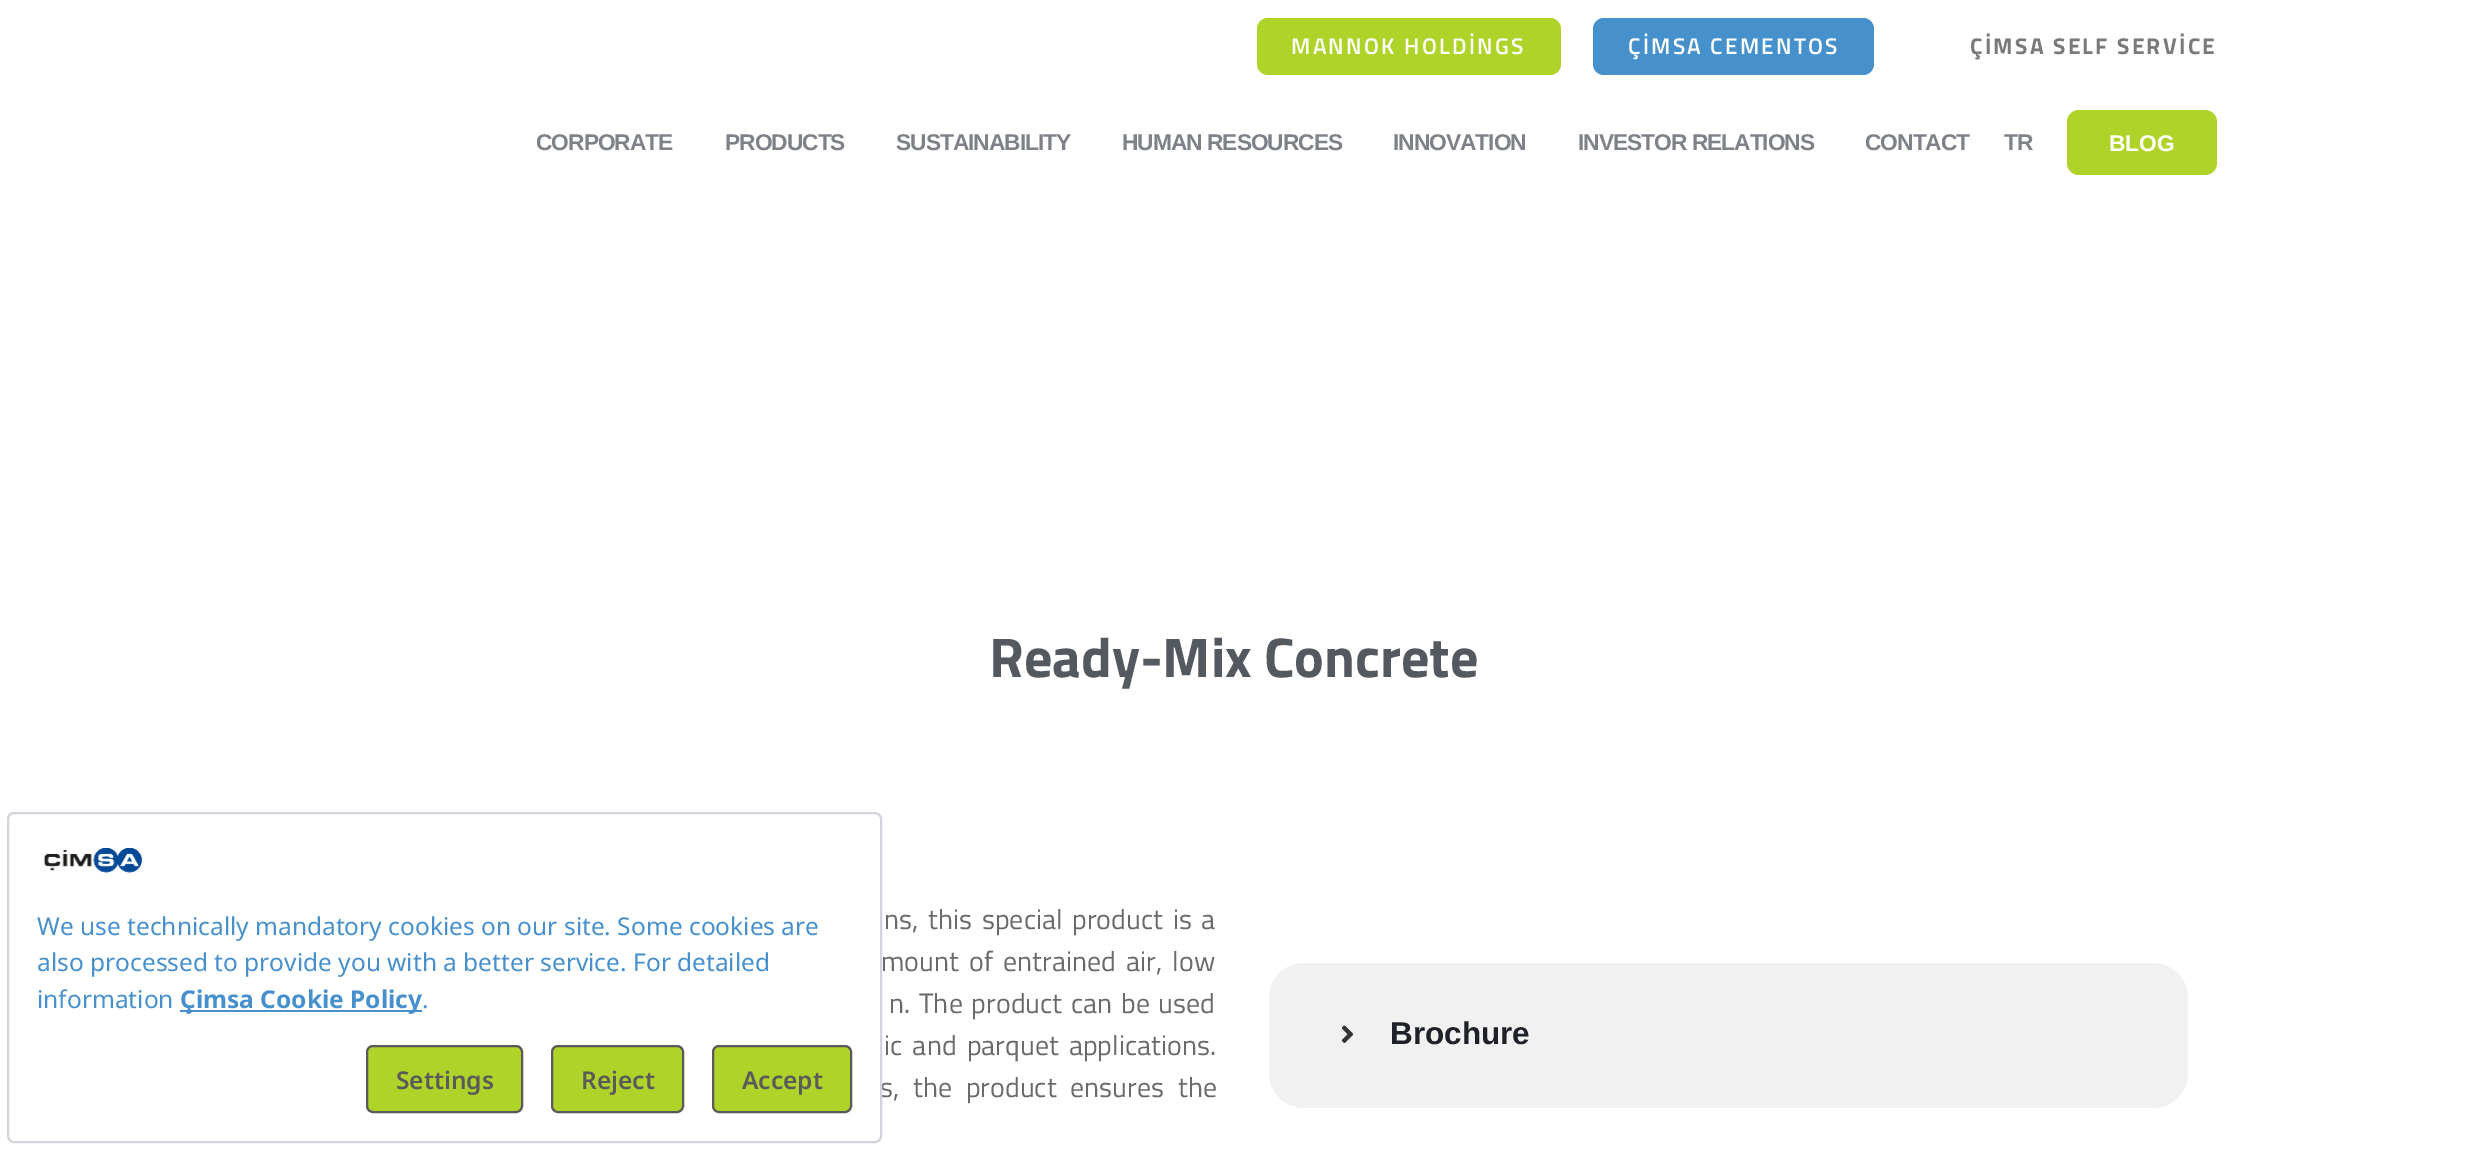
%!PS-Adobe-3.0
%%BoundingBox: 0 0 2466 1149
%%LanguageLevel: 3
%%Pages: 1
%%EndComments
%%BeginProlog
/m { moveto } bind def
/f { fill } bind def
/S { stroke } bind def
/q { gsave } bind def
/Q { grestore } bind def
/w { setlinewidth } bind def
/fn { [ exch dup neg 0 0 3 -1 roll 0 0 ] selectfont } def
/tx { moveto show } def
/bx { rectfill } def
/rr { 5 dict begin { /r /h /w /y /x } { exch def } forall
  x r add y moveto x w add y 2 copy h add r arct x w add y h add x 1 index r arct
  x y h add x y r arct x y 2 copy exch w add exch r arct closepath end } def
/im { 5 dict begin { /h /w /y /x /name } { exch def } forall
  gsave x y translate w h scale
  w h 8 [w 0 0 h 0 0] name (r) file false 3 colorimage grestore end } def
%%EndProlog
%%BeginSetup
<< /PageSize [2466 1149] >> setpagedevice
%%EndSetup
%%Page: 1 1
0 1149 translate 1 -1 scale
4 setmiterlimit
1 setgray
0 0 2466 1149 bx
0.686 0.827 0.161 setrgbcolor
1257 18 304 57 11 rr f
/TitilliumWeb-SemiBold 22.75 fn
1 setgray
1291 54 m 2.25 0 (MANNOK HOLDİNGS) ashow
0.275 0.565 0.8 setrgbcolor
1593 18 281 57 11 rr f
1 setgray
1628 54 m 2.25 0 (ÇİMSA CEMENTOS) ashow
/TitilliumWeb-Bold 22.75 fn
0.478 setgray
1970 54 m 2.25 0 (ÇİMSA SELF SERVİCE) ashow
/LiberationSans-Bold 22.75 fn
0.494 0.51 0.533 setrgbcolor
536 150 m -1 0 (CORPORATE) ashow
725 150 m -1 0 (PRODUCTS) ashow
896 150 m -1 0 (SUSTAINABILITY) ashow
1122 150 m -1 0 (HUMAN RESOURCES) ashow
1393 150 m -1 0 (INNOVATION) ashow
1578 150 m -1 0 (INVESTOR RELATIONS) ashow
1865 150 m -1 0 (CONTACT) ashow
2004 150 m -1 0 (TR) ashow
0.686 0.827 0.161 setrgbcolor
2067 110 150 65 12 rr f
1 setgray
(BLOG) 2109 151 tx
/TitilliumWeb-Regular 28 fn
0.416 setgray
880 1097 m 7.5 0 32 (s, the product ensures the) widthshow
1 setgray
8 813 873 329 6 rr q f Q
0.82 0.835 0.859 setrgbcolor
2 w
S
(image0.raw) 43 848 100 25 im
/NotoSans-Regular 24.5 fn
0.278 0.565 0.804 setrgbcolor
(We use technically mandatory cookies on our site. Some cookies are) 37 935 tx
(also processed to provide you with a better service. For detailed) 37 971 tx
(information) 37 1008 tx
180 1010 242 2 bx
/NotoSans-Bold 24.5 fn
(Çimsa Cookie Policy) 180 1008 tx
/NotoSans-Regular 24.5 fn
(.) 422 1008 tx
0.686 0.827 0.161 setrgbcolor
367 1046 155 66 6 rr q f Q
0.357 0.353 0.353 setrgbcolor
S
/NotoSans-SemiBold 24.5 fn
(Settings) 396 1089 tx
0.686 0.827 0.161 setrgbcolor
552 1046 131 66 6 rr q f Q
0.357 0.353 0.353 setrgbcolor
S
(Reject) 581 1089 tx
0.686 0.827 0.161 setrgbcolor
713 1046 138 66 6 rr q f Q
0.357 0.353 0.353 setrgbcolor
S
(Accept) 742 1089 tx
/TitilliumWeb-Bold 56 fn
0.329 0.349 0.373 setrgbcolor
(Ready-Mix Concrete) 989 677 tx
/TitilliumWeb-Regular 28 fn
0.416 setgray
884 929 m 3.5 0 32 (ns, this special product is a) widthshow
881 971 m 4 0 32 (mount of entrained air, low) widthshow
889 1013 m 2.5 0 32 (n. The product can be used) widthshow
884 1055 m 4 0 32 (ic and parquet applications.) widthshow
0.945 setgray
1269 963 919 145 35 rr f
(image1.raw) 1341 1025 13 18 im
/LiberationSans-Bold 31.5 fn
0.118 0.133 0.157 setrgbcolor
(Brochure) 1390 1044 tx
showpage
%%EOF
